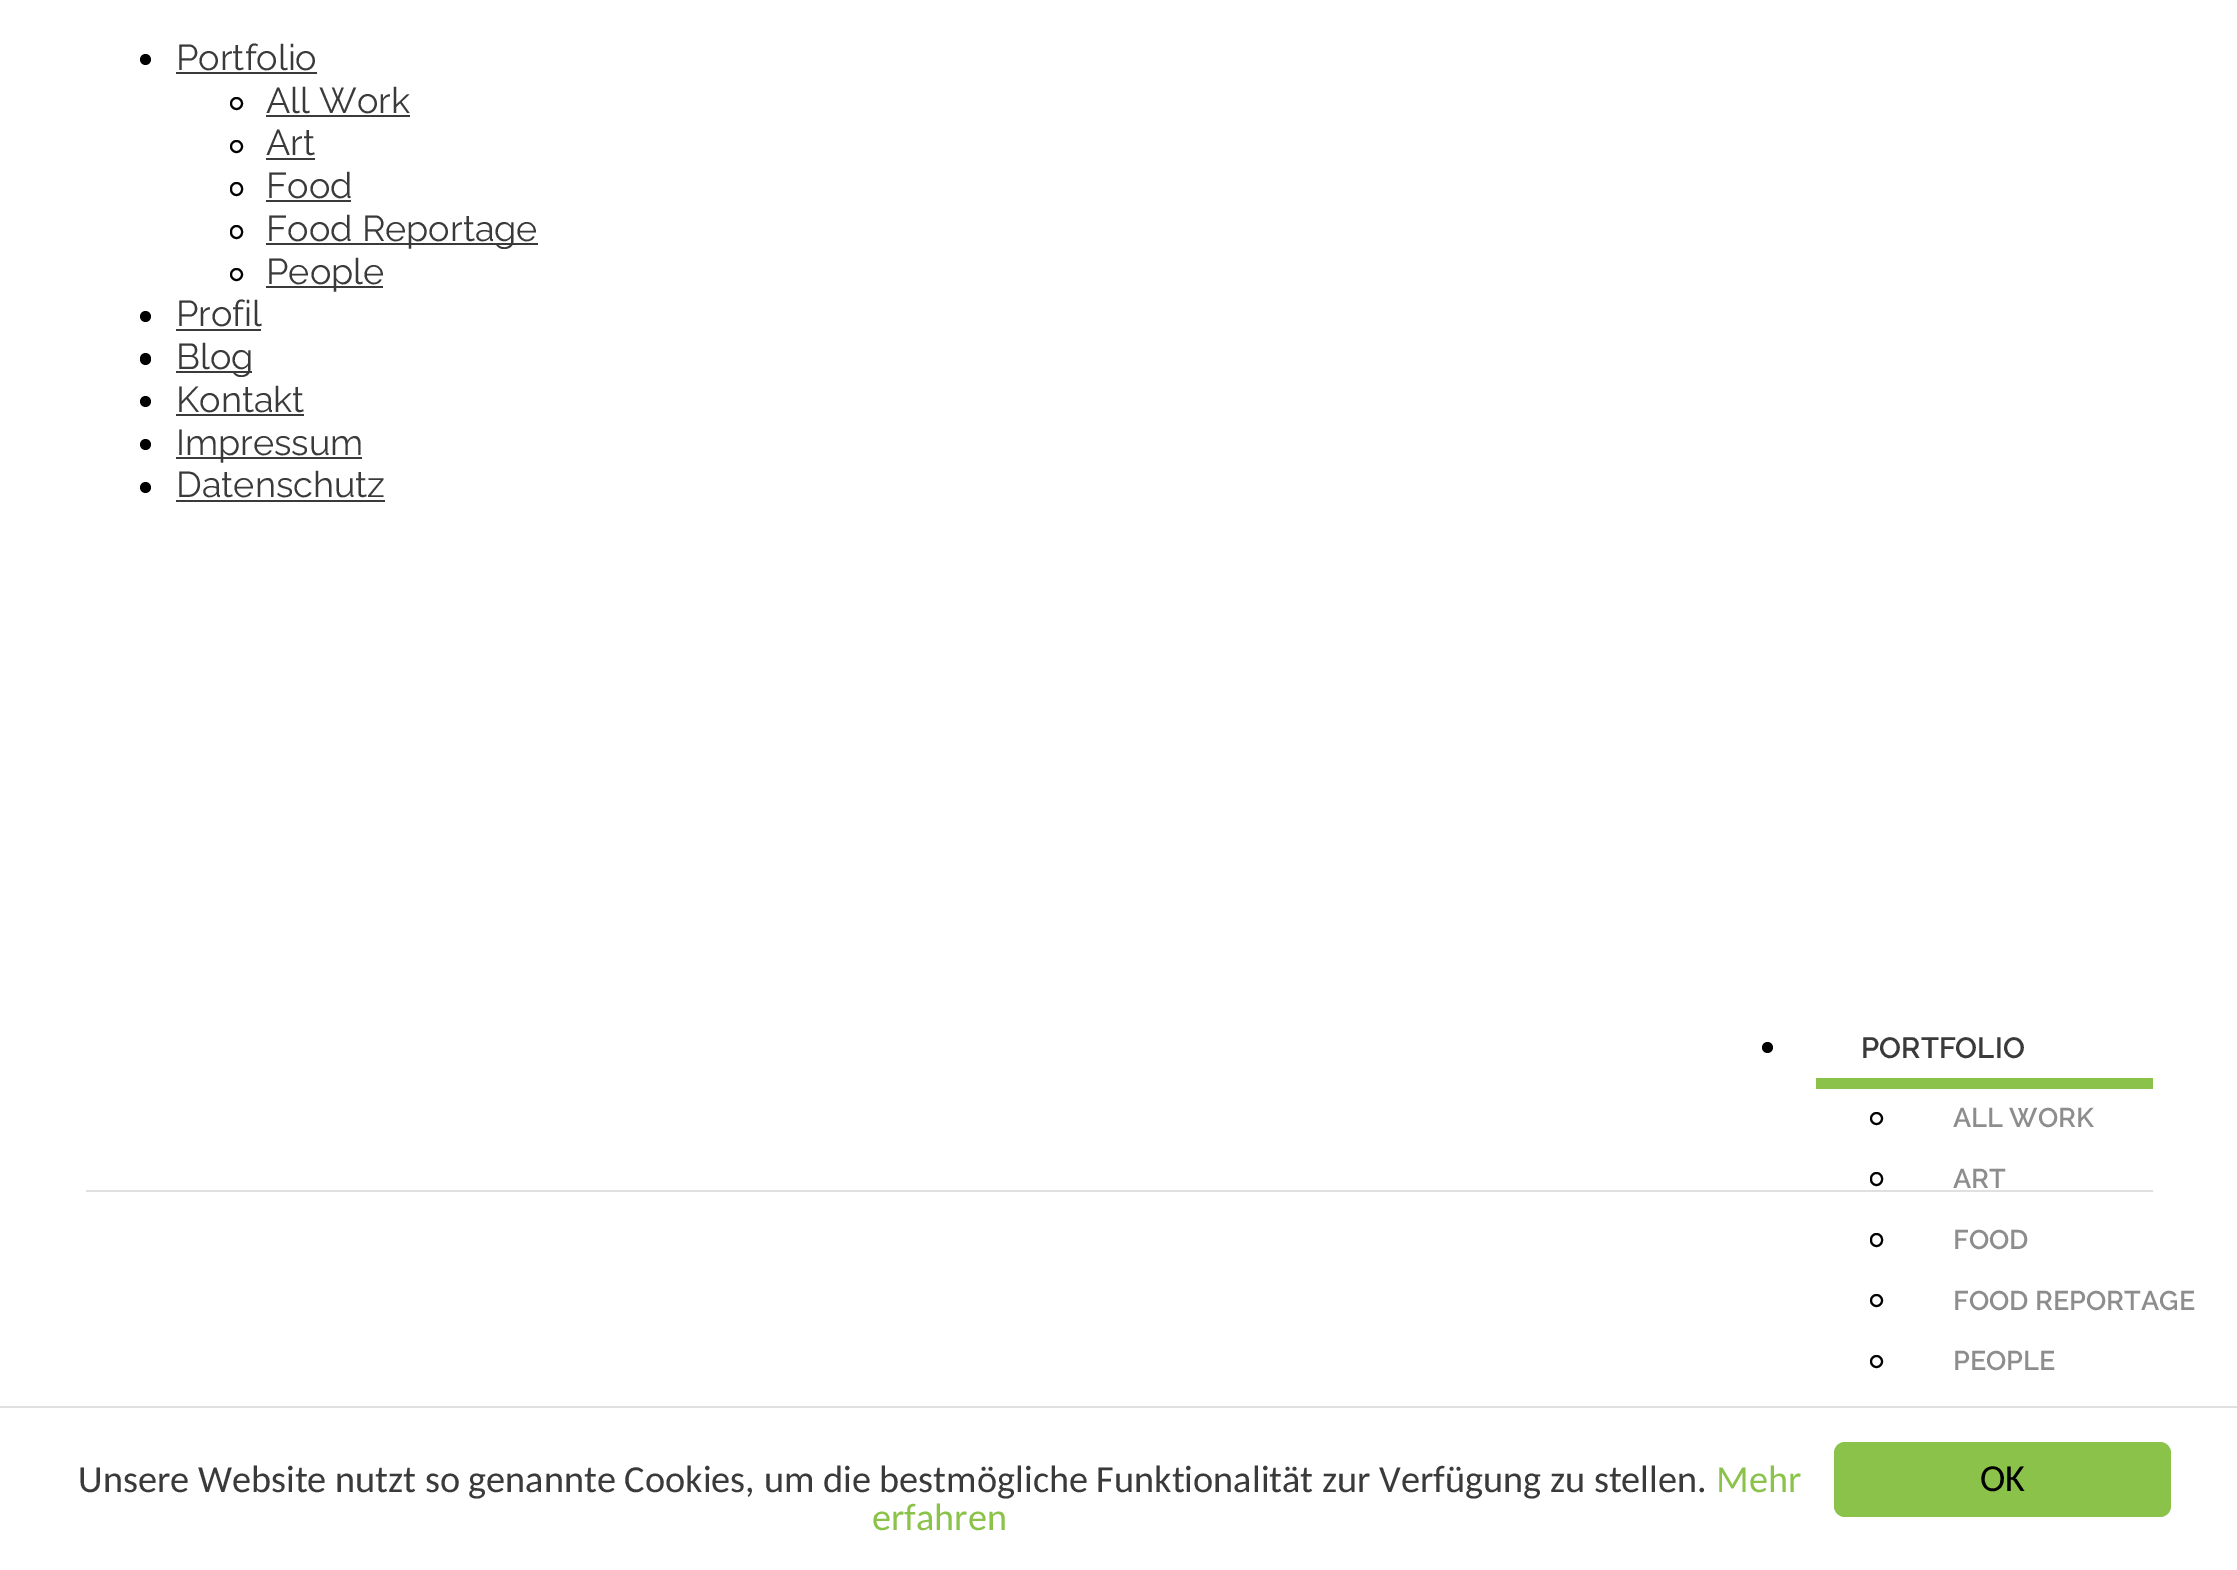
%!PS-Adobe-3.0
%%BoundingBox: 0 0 2237 1570
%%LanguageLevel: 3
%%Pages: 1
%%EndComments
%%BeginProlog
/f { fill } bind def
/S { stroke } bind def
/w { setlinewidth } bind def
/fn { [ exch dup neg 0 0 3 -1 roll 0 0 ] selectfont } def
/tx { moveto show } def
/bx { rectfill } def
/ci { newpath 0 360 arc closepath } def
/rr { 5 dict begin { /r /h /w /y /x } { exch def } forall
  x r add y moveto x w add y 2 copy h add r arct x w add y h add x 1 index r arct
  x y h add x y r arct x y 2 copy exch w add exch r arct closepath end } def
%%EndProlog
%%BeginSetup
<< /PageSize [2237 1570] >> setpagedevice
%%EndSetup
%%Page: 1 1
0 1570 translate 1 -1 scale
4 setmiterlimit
1 setgray
0 0 2237 1570 bx
0 setgray
145.5 59.5 5.5 ci f
/Raleway-Regular 36 fn
0.227 setgray
(Portfolio) 176 70 tx
176 72 141 2 bx
0 setgray
2 w
236.5 103.5 5.5 ci S
0.227 setgray
(All Work) 266 113 tx
266 115 144 2 bx
0 setgray
236.5 146.5 5.5 ci S
0.227 setgray
(Art) 266 155 tx
266 158 49 2 bx
0 setgray
231 183 11 12 5.5 rr S
0.227 setgray
(Food) 266 198 tx
266 200 85 2 bx
0 setgray
231 226 11 12 5.5 rr S
0.227 setgray
266 243 272 2 bx
(Food Reportage) 266 241 tx
0 setgray
236.5 274.5 5.5 ci S
0.227 setgray
266 286 117 2 bx
(People) 266 284 tx
0 setgray
145.5 316.5 5.5 ci f
0.227 setgray
(Profil) 176 326 tx
176 329 85 2 bx
0 setgray
140 353 11 12 5.5 rr f
0.227 setgray
176 371 76 2 bx
(Blog) 176 369 tx
0 setgray
145.5 401.5 5.5 ci f
0.227 setgray
(Kontakt) 176 412 tx
176 414 128 2 bx
0 setgray
145.5 444.5 5.5 ci f
0.227 setgray
176 457 186 2 bx
(Impressum) 176 455 tx
0 setgray
145.5 487.5 5.5 ci f
0.227 setgray
(Datenschutz) 176 497 tx
176 500 209 2 bx
0.878 setgray
86 1190 2067 2 bx
0 setgray
1767.5 1047.5 5.5 ci f
/Raleway-SemiBold 29.25 fn
0.227 setgray
(PORTFOLIO) 1861 1058 tx
0.545 0.765 0.29 setrgbcolor
1816 1078 337 11 bx
0 setgray
1876.5 1118.5 5.5 ci S
/Raleway-SemiBold 27 fn
0.553 setgray
(ALL WORK) 1953 1127 tx
0 setgray
1871 1173 11 12 5.5 rr S
0.553 setgray
(ART) 1953 1188 tx
0 setgray
1871 1234 11 12 5.5 rr S
0.553 setgray
(FOOD) 1953 1249 tx
0 setgray
1876.5 1300.5 5.5 ci S
0.553 setgray
(FOOD REPORTAGE) 1953 1310 tx
0 setgray
1876.5 1361.5 5.5 ci S
0.553 setgray
(PEOPLE) 1953 1370 tx
0.878 setgray
0 1406 2237 2 bx
/Carlito-Regular 38.25 fn
0.227 setgray
(Unsere Website nutzt so genannte Cookies, um die bestmögliche Funktionalität zur Verfügung zu stellen.) 78 1492 tx
0.545 0.765 0.29 setrgbcolor
(Mehr) 1716 1492 tx
(erfahren) 872 1530 tx
1834 1442 337 75 11 rr f
0 setgray
(OK) 1980 1491 tx
showpage
%%EOF
